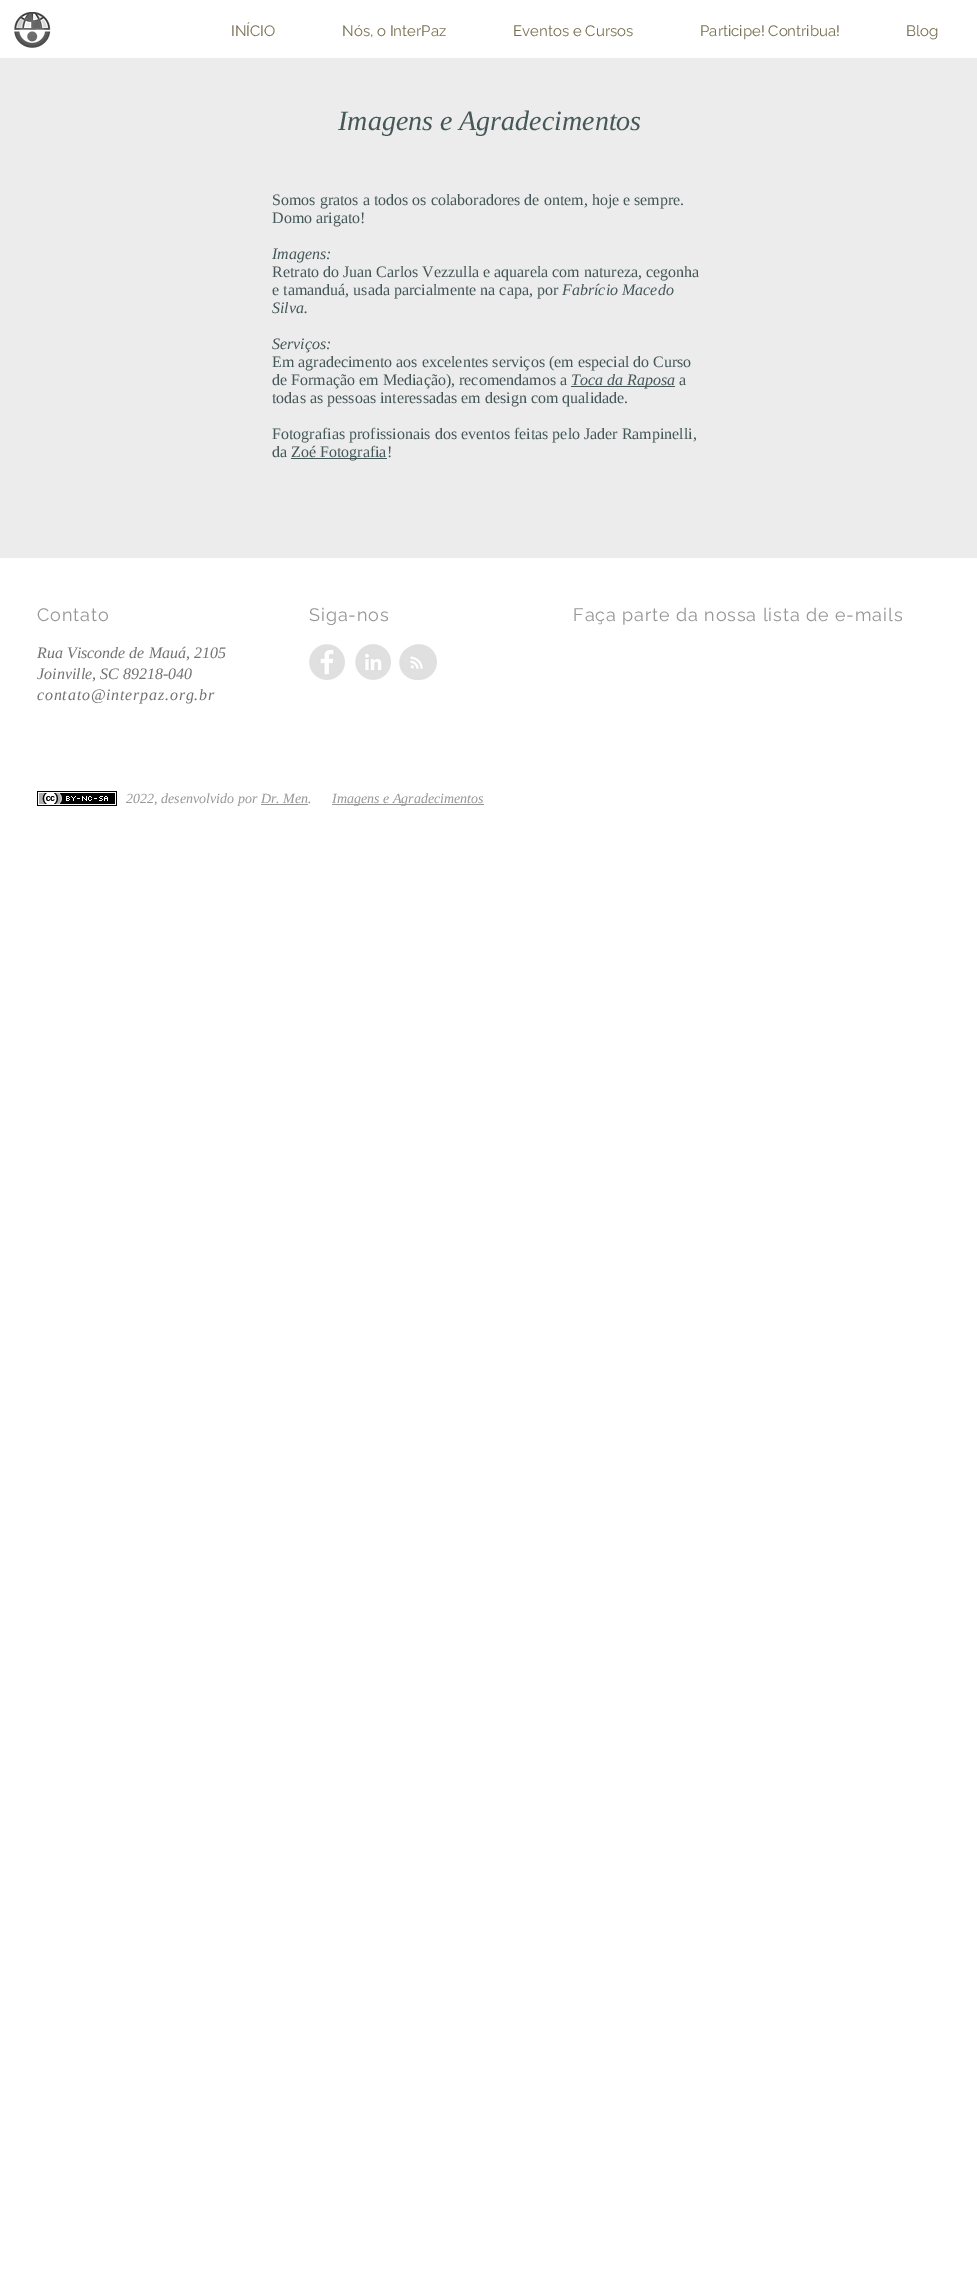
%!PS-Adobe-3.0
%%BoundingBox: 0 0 977 2273
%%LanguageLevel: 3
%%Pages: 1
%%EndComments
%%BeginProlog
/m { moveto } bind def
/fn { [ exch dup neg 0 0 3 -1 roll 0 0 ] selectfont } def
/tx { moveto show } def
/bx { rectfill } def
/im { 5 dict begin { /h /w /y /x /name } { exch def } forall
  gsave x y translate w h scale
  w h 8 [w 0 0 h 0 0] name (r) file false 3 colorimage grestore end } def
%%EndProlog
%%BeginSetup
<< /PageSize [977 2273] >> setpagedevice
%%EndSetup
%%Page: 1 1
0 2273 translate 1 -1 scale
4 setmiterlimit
1 setgray
0 0 977 2273 bx
(image0.raw) 14 12 37 36 im
/Raleway-Regular 15 fn
0.467 0.439 0.318 setrgbcolor
(INÍCIO) 231 36 tx
(Nós, o InterPaz) 342 36 tx
(Eventos e Cursos) 513 36 tx
(Participe! Contribua!) 700 36 tx
(Blog) 906 36 tx
0.925 setgray
0 58 977 500 bx
/LiberationSerif-Italic 28 fn
0.271 0.341 0.341 setrgbcolor
(Imagens e Agradecimentos) 338 130 tx
/LiberationSerif-Regular 16 fn
(Somos gratos a todos os colaboradores de ontem, hoje e sempre.) 272 205 tx
(Domo arigato!) 272 223 tx
/LiberationSerif-Italic 16 fn
(Imagens:) 272 259 tx
/LiberationSerif-Regular 16 fn
(Retrato do Juan Carlos Vezzulla e aquarela com natureza, cegonha) 272 277 tx
(e tamanduá, usada parcialmente na capa, por) 272 295 tx
/LiberationSerif-Italic 16 fn
(Fabrício Macedo) 562 295 tx
(Silva.) 272 313 tx
(Serviços:) 272 349 tx
/LiberationSerif-Regular 16 fn
(Em agradecimento aos excelentes serviços \(em especial do Curso) 272 367 tx
(de Formação em Mediação\), recomendamos a) 272 385 tx
571 386 104 1 bx
/LiberationSerif-Italic 16 fn
(Toca da Raposa) 571 385 tx
/LiberationSerif-Regular 16 fn
(a) 679 385 tx
(todas as pessoas interessadas em design com qualidade.) 272 403 tx
(Fotografias profissionais dos eventos feitas pelo Jader Rampinelli,) 272 439 tx
(da) 272 457 tx
291 458 96 1 bx
(Zoé Fotografia!) 291 457 tx
/Raleway-Regular 18 fn
0.588 setgray
37 621 m 0.9 0 (Contato) ashow
/LiberationSerif-Italic 16 fn
0.447 setgray
(Rua Visconde de Mauá, 2105) 37 658 tx
(Joinville, SC 89218-040) 37 679 tx
37 700 m 0.8 0 (contato@interpaz.org.br) ashow
/Raleway-Regular 18 fn
0.588 setgray
309 621 m 0.9 0 (Siga-nos) ashow
573 621 m 0.9 0 (Faça parte da nossa lista de e-mails) ashow
(image1.raw) 309 644 36 36 im
(image2.raw) 355 644 36 36 im
(image3.raw) 401 644 36 36 im
(image4.raw) 399 645 27 35 im
(image5.raw) 37 791 80 15 im
/LiberationSerif-Italic 14 fn
(2022, desenvolvido por Dr. Men.) 126 803 tx
261 804 47 1 bx
332 804 152 1 bx
(Imagens e Agradecimentos) 332 803 tx
showpage
%%EOF
